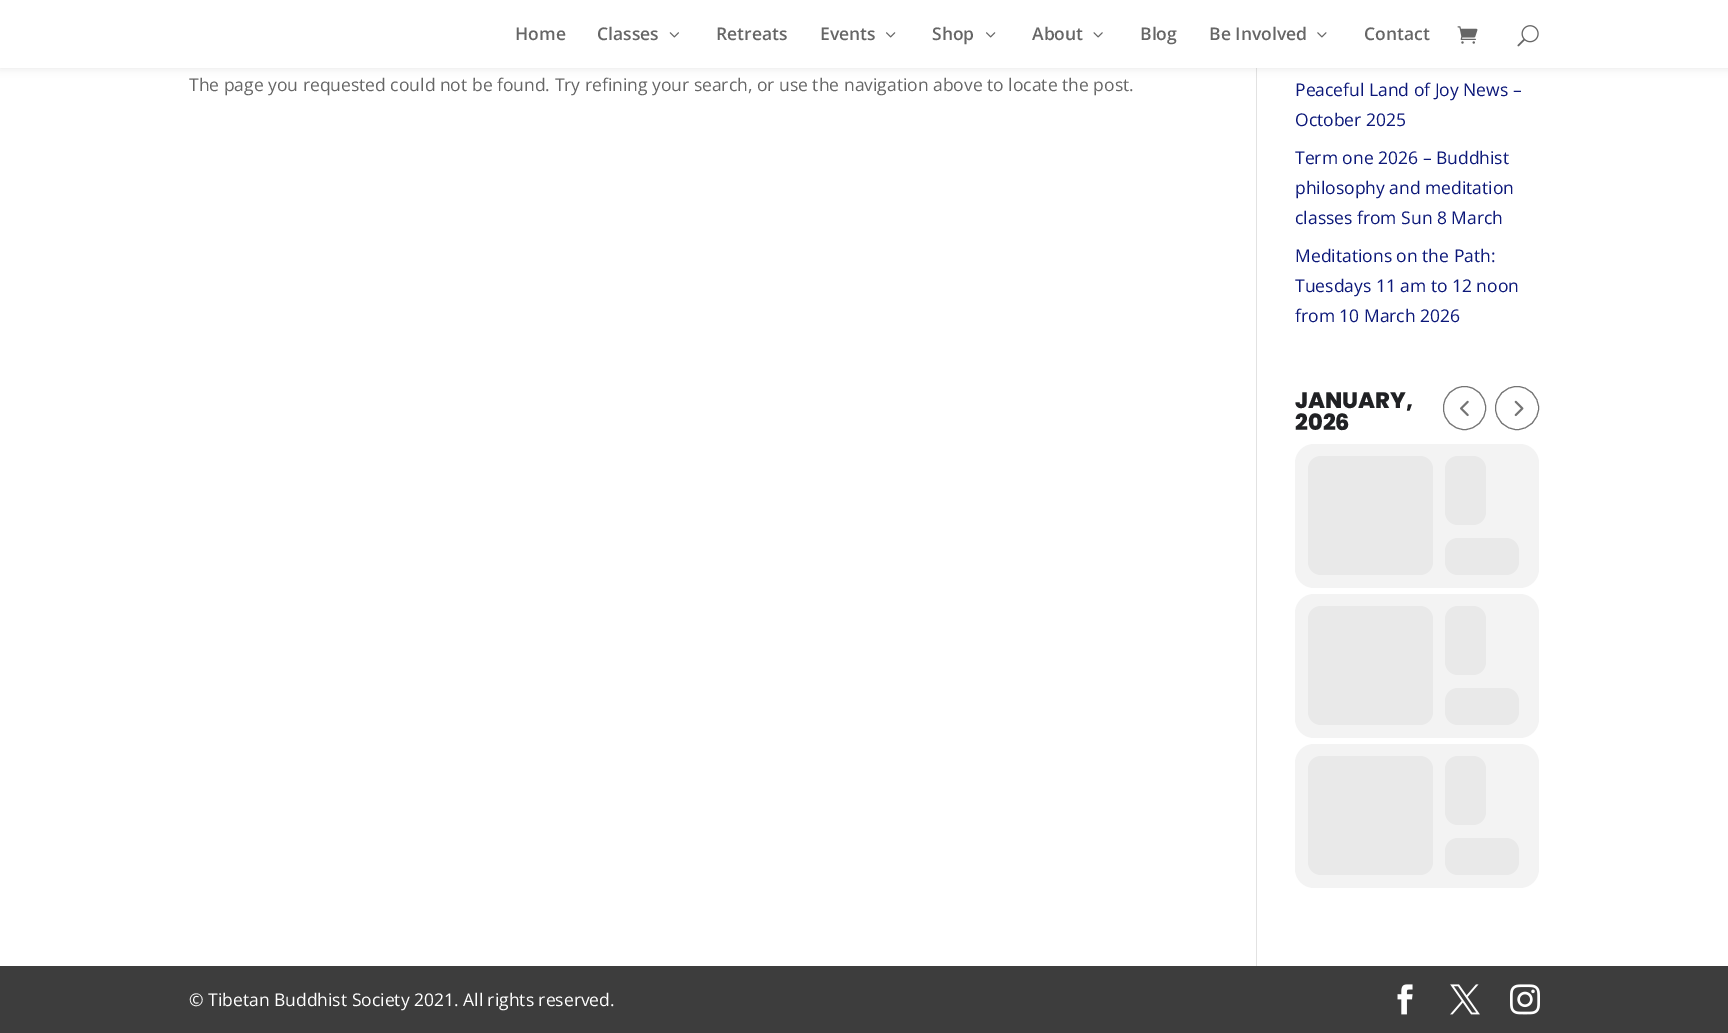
%!PS-Adobe-3.0
%%BoundingBox: 0 0 1728 1033
%%LanguageLevel: 3
%%Pages: 1
%%EndComments
%%BeginProlog
/f { fill } bind def
/S { stroke } bind def
/fn { [ exch dup neg 0 0 3 -1 roll 0 0 ] selectfont } def
/tx { moveto show } def
/bx { rectfill } def
/al { dup .setfillconstantalpha .setstrokeconstantalpha } def
/ci { newpath 0 360 arc closepath } def
/rr { 5 dict begin { /r /h /w /y /x } { exch def } forall
  x r add y moveto x w add y 2 copy h add r arct x w add y h add x 1 index r arct
  x y h add x y r arct x y 2 copy exch w add exch r arct closepath end } def
/sh { 12 dict begin { /a /b /q /h /w /y /x } { exch def } forall gsave /was 0 def
  9 -2 -9 { dup b mul 4 div /e exch def 1 sub .425 mul 2.718 exch exp 1 add a .99 .min exch div /now exch def
    1 1 now sub 1 was sub div sub al /was now def
    w h .min e 2 mul add 0 gt { x e sub y e sub w e 2 mul add h e 2 mul add
      q e add b .6 mul add w h .min 2 div e add .min 0 .max rr fill } if } for grestore end } def
/im { 5 dict begin { /h /w /y /x /name } { exch def } forall
  gsave x y translate w h scale
  w h 8 [w 0 0 h 0 0] name (r) file false 3 colorimage grestore end } def
%%EndProlog
%%BeginSetup
<< /PageSize [1728 1033] /PageUsesTransparency true >> setpagedevice
%%EndSetup
%%Page: 1 1
0 .pushpdf14devicefilter
0 1033 translate 1 -1 scale
4 setmiterlimit
1 setgray
0 0 1728 1033 bx
0.886 setgray
1256 68 1 898 bx
0 setgray
0 0 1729 68 0 4.5 0.1 sh
1 setgray
0 0 1728 68 bx
/OpenSans-SemiBold 17.5 fn
0.4 setgray
(Home) 515 40 tx
(Classes) 597 40 tx
(image0.raw) 669 32 10 6 im
(Retreats) 716 40 tx
(Events) 820 40 tx
(image1.raw) 886 32 10 6 im
(Shop) 932 40 tx
(image1.raw) 986 32 10 6 im
(About) 1032 40 tx
(image2.raw) 1093 32 10 6 im
(Blog) 1140 40 tx
(Be Involved) 1209 40 tx
(image3.raw) 1317 32 10 6 im
(Contact) 1364 40 tx
(image4.raw) 1457 26 21 18 im
(image5.raw) 1517 25 22 22 im
/OpenSans-Regular 17.5 fn
(The page you requested could not be found. Try refining your search, or use the navigation above to locate the post.) 189 91 tx
0.047 0.094 0.475 setrgbcolor
(Peaceful Land of Joy News –) 1295 96 tx
(October 2025) 1295 126 tx
(Term one 2026 – Buddhist) 1295 164 tx
(philosophy and meditation) 1295 194 tx
(classes from Sun 8 March) 1295 224 tx
(Meditations on the Path:) 1295 262 tx
(Tuesdays 11 am to 12 noon) 1295 292 tx
(from 10 March 2026) 1295 322 tx
/Poppins-ExtraBold 22.5 fn
0.125 0.129 0.141 setrgbcolor
(JANUARY,) 1295 408 tx
(2026) 1295 430 tx
0.451 setgray
1443.5 386.5 42 43 21 rr S
(image6.raw) 1460 400 9 17 im
1517 408 21.5 ci S
(image7.raw) 1514 400 10 17 im
0.953 setgray
1295 444 244 144 19 rr f
0.914 setgray
1308 456 125 119 13 rr f
1445 456 41 69 13 rr f
1445 538 74 37 13 rr f
0.953 setgray
1295 594 244 144 19 rr f
0.914 setgray
1308 606 125 119 13 rr f
1445 606 41 69 13 rr f
1445 688 74 37 13 rr f
0.953 setgray
1295 744 244 144 19 rr f
0.914 setgray
1308 756 125 119 13 rr f
1445 756 41 69 13 rr f
1445 838 74 37 13 rr f
0.239 setgray
0 966 1728 67 bx
/OpenSans-Regular 17.5 fn
1 setgray
(© Tibetan Buddhist Society 2021. All rights reserved.) 189 1006 tx
(image8.raw) 1397 984 16 31 im
(image9.raw) 1450 984 30 31 im
(image10.raw) 1510 984 30 31 im
.poppdf14devicefilter showpage
%%EOF
